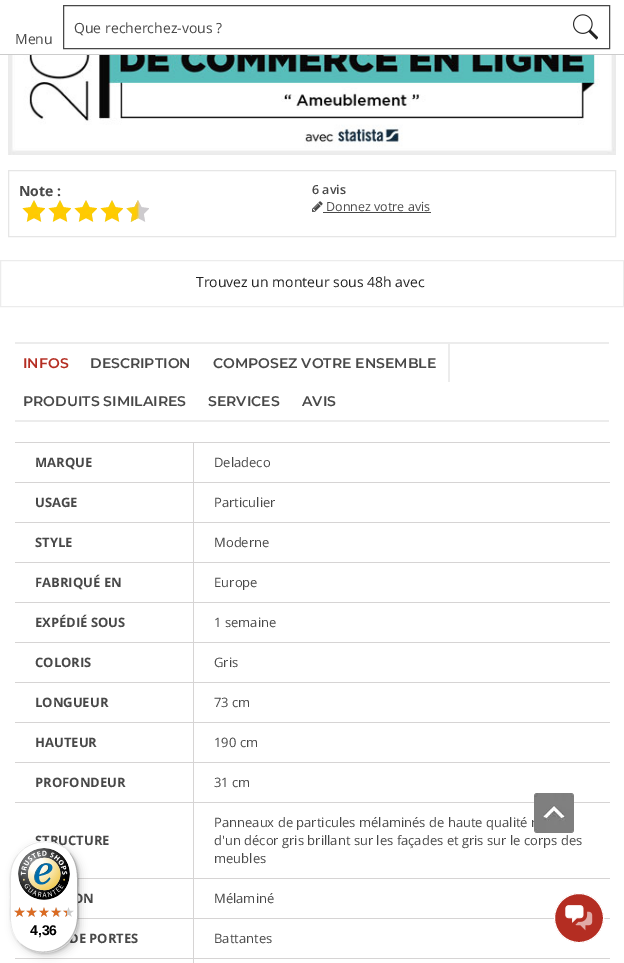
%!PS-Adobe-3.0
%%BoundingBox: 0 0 624 963
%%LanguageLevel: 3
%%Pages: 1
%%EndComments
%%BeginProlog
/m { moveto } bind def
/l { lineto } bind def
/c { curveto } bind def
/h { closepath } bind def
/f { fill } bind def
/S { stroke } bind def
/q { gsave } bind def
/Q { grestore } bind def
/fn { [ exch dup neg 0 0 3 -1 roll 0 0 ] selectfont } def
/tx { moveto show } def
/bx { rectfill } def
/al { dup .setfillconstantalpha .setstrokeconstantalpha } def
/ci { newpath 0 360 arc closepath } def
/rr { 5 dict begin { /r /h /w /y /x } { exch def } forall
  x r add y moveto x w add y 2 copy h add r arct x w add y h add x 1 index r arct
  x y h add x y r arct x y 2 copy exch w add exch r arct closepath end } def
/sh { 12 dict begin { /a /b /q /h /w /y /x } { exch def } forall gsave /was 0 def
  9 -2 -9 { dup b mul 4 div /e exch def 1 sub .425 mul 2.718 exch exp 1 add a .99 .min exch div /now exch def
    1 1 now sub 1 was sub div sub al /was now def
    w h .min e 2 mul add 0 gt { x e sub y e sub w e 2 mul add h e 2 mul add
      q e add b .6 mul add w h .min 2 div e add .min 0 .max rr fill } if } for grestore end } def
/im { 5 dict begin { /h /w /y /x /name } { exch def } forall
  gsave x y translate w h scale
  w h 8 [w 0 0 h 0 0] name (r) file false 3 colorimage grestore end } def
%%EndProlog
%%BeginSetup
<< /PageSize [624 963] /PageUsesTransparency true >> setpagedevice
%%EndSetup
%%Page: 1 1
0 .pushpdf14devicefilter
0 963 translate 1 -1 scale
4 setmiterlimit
1 setgray
0 0 624 963 bx
0.8 setgray
0 54 624 1 bx
0.282 setgray
63.5 5.5 546 43 rectstroke
/OpenSans-Regular 14 fn
(Que recherchez-vous ?) 74 33 tx
(image0.raw) 573 14 25 26 im
(Menu) 15 44 tx
(image1.raw) 8 55 608 100 im
0.902 setgray
8.5 170.5 607 66 rectstroke
/OpenSans-Bold 14 fn
0.282 setgray
(Note :) 19 196 tx
(image2.raw) 22 200 23 22 im
(image2.raw) 48 200 23 22 im
(image2.raw) 74 200 23 22 im
(image2.raw) 100 200 23 22 im
(image3.raw) 126 200 23 22 im
/OpenSans-SemiBold 12.5 fn
(6 avis) 312 194 tx
(image4.raw) 312 201 11 11 im
/OpenSans-Regular 12.5 fn
(Donnez votre avis) 326 211 tx
323 212 108 1 bx
0.925 setgray
0.5 260.5 623 46 rectstroke
/OpenSans-Regular 14 fn
0.137 setgray
(Trouvez un monteur sous 48h avec) 196 287 tx
0.925 setgray
15 342 594 2 bx
15 420 594 2 bx
/Montserrat-SemiBold 14 fn
0.706 0.176 0.133 setrgbcolor
(INFOS) 23 368 tx
0.282 setgray
(DESCRIPTION) 90 368 tx
0.925 setgray
448 344 2 38 bx
0.282 setgray
(COMPOSEZ VOTRE ENSEMBLE) 213 368 tx
(PRODUITS SIMILAIRES) 23 406 tx
(SERVICES) 208 406 tx
(AVIS) 302 406 tx
0.839 0.831 0.831 setrgbcolor
15 958 595 1 bx
15 442 595 1 bx
15 482 595 1 bx
15 522 595 1 bx
15 562 595 1 bx
15 602 595 1 bx
15 642 595 1 bx
15 682 595 1 bx
15 722 595 1 bx
15 762 595 1 bx
15 802 595 1 bx
78 878 532 1 bx
78 918 532 1 bx
193 442 1 521 bx
/OpenSans-Bold 13 fn
0.282 setgray
(MARQUE) 35 467 tx
/OpenSans-Regular 13 fn
(Deladeco) 214 467 tx
/OpenSans-Bold 13 fn
(USAGE) 35 507 tx
/OpenSans-Regular 13 fn
(Particulier) 214 507 tx
/OpenSans-Bold 13 fn
(STYLE) 35 547 tx
/OpenSans-Regular 13 fn
(Moderne) 214 547 tx
/OpenSans-Bold 13 fn
(FABRIQUÉ EN) 35 587 tx
/OpenSans-Regular 13 fn
(Europe) 214 587 tx
/OpenSans-Bold 13 fn
(EXPÉDIÉ SOUS) 35 627 tx
/OpenSans-Regular 13 fn
(1 semaine) 214 627 tx
/OpenSans-Bold 13 fn
(COLORIS) 35 667 tx
/OpenSans-Regular 13 fn
(Gris) 214 667 tx
/OpenSans-Bold 13 fn
(LONGUEUR) 35 707 tx
/OpenSans-Regular 13 fn
(73 cm) 214 707 tx
/OpenSans-Bold 13 fn
(HAUTEUR) 35 747 tx
/OpenSans-Regular 13 fn
(190 cm) 214 747 tx
/OpenSans-Bold 13 fn
(PROFONDEUR) 35 787 tx
/OpenSans-Regular 13 fn
(31 cm) 214 787 tx
/OpenSans-Bold 13 fn
(STRUCTURE) 35 845 tx
/OpenSans-Regular 13 fn
(Panneaux de particules mélaminés de haute qualité r) 214 827 tx
(d'un décor gris brillant sur les façades et gris sur le corps des) 214 845 tx
(meubles) 214 863 tx
/OpenSans-Bold 13 fn
(ON) 73 903 tx
/OpenSans-Regular 13 fn
(Mélaminé) 214 903 tx
/OpenSans-Bold 13 fn
(DE PORTES) 69 943 tx
/OpenSans-Regular 13 fn
(Battantes) 214 943 tx
(image5.raw) 534 793 40 40 im
0 setgray
13 844 68 112 34 4 0.15 sh
11 842 68 112 34 1 0.15 sh
1 setgray
10 841 68 112 34 rr f
0.898 setgray
45 842 m 53 842 61 845 67 850 c 50 835 22 841 13 862 c 8 872 10 886 10 897 c 10 912 7 929 19 942 c 14 936 11 928 11 920 c 11 876 l 11 857 26 842 45 842 c h f
0.2 al
0 setgray
21 944 m 38 959 66 953 75 932 c 80 922 78 908 78 897 c 78 882 81 865 69 852 c 79 865 77 881 77 896 c 77 907 79 921 74 931 c 66 952 38 958 21 944 c h f
0.196 setgray
17 940 m 24 948 33 953 44 953 c 63 953 78 938 78 919 c 78 875 l 78 864 73 855 65 848 c 72 855 77 864 77 874 c 77 918 l 77 937 62 952 43 952 c 33 952 24 947 17 940 c h f
0.3 al
1 setgray
10 918 m 10 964 78 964 78 918 c 78 937 62 952 44 952 c 25 952 10 937 10 918 c h f
1 al
(image6.raw) 18 848 52 52 im
(image7.raw) 14 907 11 10 im
(image8.raw) 27 907 10 10 im
(image9.raw) 39 907 10 10 im
(image10.raw) 51 907 11 10 im
(image10.raw) 63 907 11 10 im
(image11.raw) 14 907 11 10 im
(image12.raw) 26 907 11 10 im
(image13.raw) 39 907 10 10 im
(image14.raw) 51 907 10 10 im
(image15.raw) 63 910 4 7 im
/LiberationSans-Bold 14 fn
0 setgray
(4,36) 30 935 tx
0.706 0.176 0.133 setrgbcolor
579 918 24.5 ci q f Q
1 setgray
S
(image16.raw) 565 905 28 26 im
.poppdf14devicefilter showpage
%%EOF
